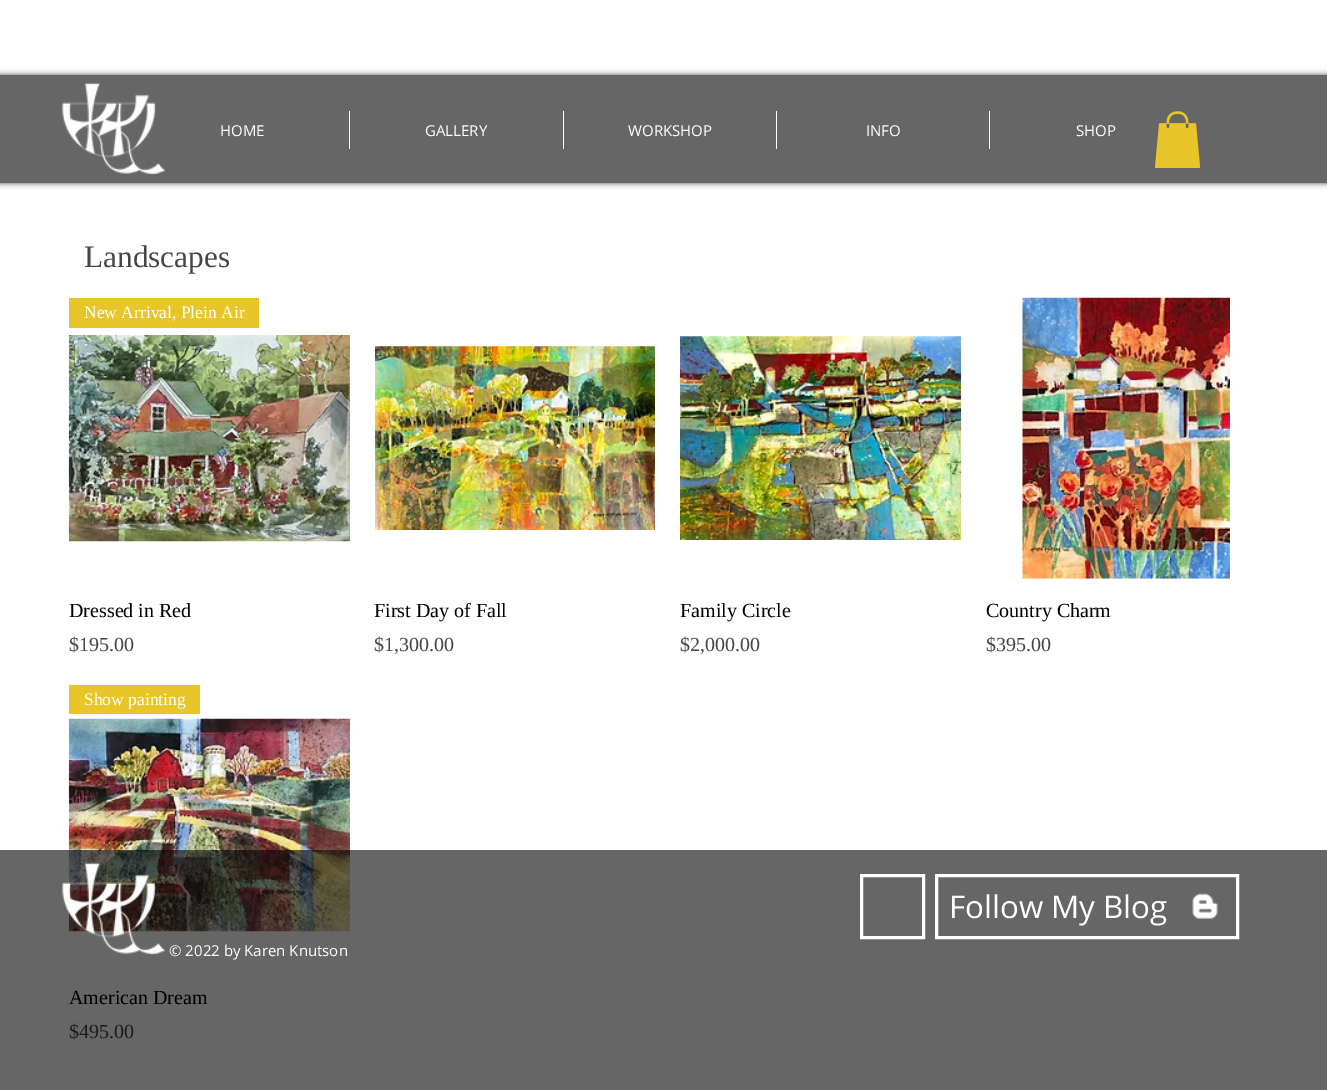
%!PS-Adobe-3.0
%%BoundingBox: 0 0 1327 1090
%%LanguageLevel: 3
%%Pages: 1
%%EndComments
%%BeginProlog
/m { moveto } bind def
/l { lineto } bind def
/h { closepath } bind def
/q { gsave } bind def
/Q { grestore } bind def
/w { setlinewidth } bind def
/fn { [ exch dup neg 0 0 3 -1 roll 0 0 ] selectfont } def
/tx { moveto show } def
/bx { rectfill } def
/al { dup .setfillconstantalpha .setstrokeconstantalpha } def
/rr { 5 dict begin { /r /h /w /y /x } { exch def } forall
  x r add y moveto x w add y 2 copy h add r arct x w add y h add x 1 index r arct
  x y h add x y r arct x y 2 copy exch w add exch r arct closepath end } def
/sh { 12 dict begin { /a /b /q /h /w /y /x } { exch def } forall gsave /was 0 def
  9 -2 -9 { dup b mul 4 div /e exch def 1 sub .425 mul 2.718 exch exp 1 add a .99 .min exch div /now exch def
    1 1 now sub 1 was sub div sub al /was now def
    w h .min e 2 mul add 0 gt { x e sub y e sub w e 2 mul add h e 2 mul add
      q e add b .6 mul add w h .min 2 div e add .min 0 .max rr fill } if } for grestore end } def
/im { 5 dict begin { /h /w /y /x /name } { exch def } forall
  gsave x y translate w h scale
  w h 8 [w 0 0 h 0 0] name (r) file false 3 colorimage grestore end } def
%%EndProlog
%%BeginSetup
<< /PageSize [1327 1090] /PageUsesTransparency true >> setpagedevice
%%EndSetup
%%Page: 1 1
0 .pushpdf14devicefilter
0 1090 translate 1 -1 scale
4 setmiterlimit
1 setgray
0 0 1327 1090 bx
q
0 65 m 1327 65 l 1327 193 l 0 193 l h 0 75 m 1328 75 l 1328 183 l 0 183 l h eoclip newpath
0 setgray
0 75 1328 108 0 3 0.7 sh
Q
0.6 al
0 setgray
0 75 1327 108 bx
1 al
(image0.raw) 62 82 104 93 im
/OpenSans-Regular 15 fn
1 setgray
(HOME) 220 136 tx
349 111 1 38 bx
(GALLERY) 425 136 tx
563 111 1 38 bx
(WORKSHOP) 628 136 tx
776 111 1 38 bx
(INFO) 866 136 tx
989 111 1 38 bx
(SHOP) 1076 136 tx
(image1.raw) 1155 111 46 57 im
/LiberationSerif-Regular 31.25 fn
0.275 setgray
(Landscapes) 84 267 tx
0.91 0.773 0.161 setrgbcolor
69 298 190 30 bx
/LiberationSerif-Regular 17.5 fn
1 setgray
(New Arrival, Plein Air) 84 318 tx
(image2.raw) 68 335 282 207 im
/LiberationSerif-Regular 20 fn
0 setgray
(Dressed in Red) 69 617 tx
0.275 setgray
($195.00) 69 651 tx
(image3.raw) 375 346 280 184 im
0 setgray
(First Day of Fall) 374 617 tx
0.275 setgray
($1,300.00) 374 651 tx
(image4.raw) 680 336 282 204 im
0 setgray
(Family Circle) 680 617 tx
0.275 setgray
($2,000.00) 680 651 tx
(image5.raw) 1022 297 208 282 im
0 setgray
(Country Charm) 986 617 tx
0.275 setgray
($395.00) 986 651 tx
0.91 0.773 0.161 setrgbcolor
69 685 131 29 bx
/LiberationSerif-Regular 17.5 fn
1 setgray
(Show painting) 84 705 tx
(image6.raw) 68 718 282 214 im
/LiberationSerif-Regular 20 fn
0 setgray
(American Dream) 69 1004 tx
0.275 setgray
($495.00) 69 1038 tx
0.6 al
0 setgray
0 850 1327 240 bx
1 al
(image7.raw) 62 862 104 93 im
1 setgray
3 w
861.5 875.5 62 62 rectstroke
936.5 875.5 301 62 rectstroke
/OpenSans-Regular 31.25 fn
(Follow My Blog) 949 918 tx
(image8.raw) 1192 893 26 26 im
/OpenSans-Regular 15 fn
(© 2022 by Karen Knutson) 169 956 tx
.poppdf14devicefilter showpage
%%EOF
